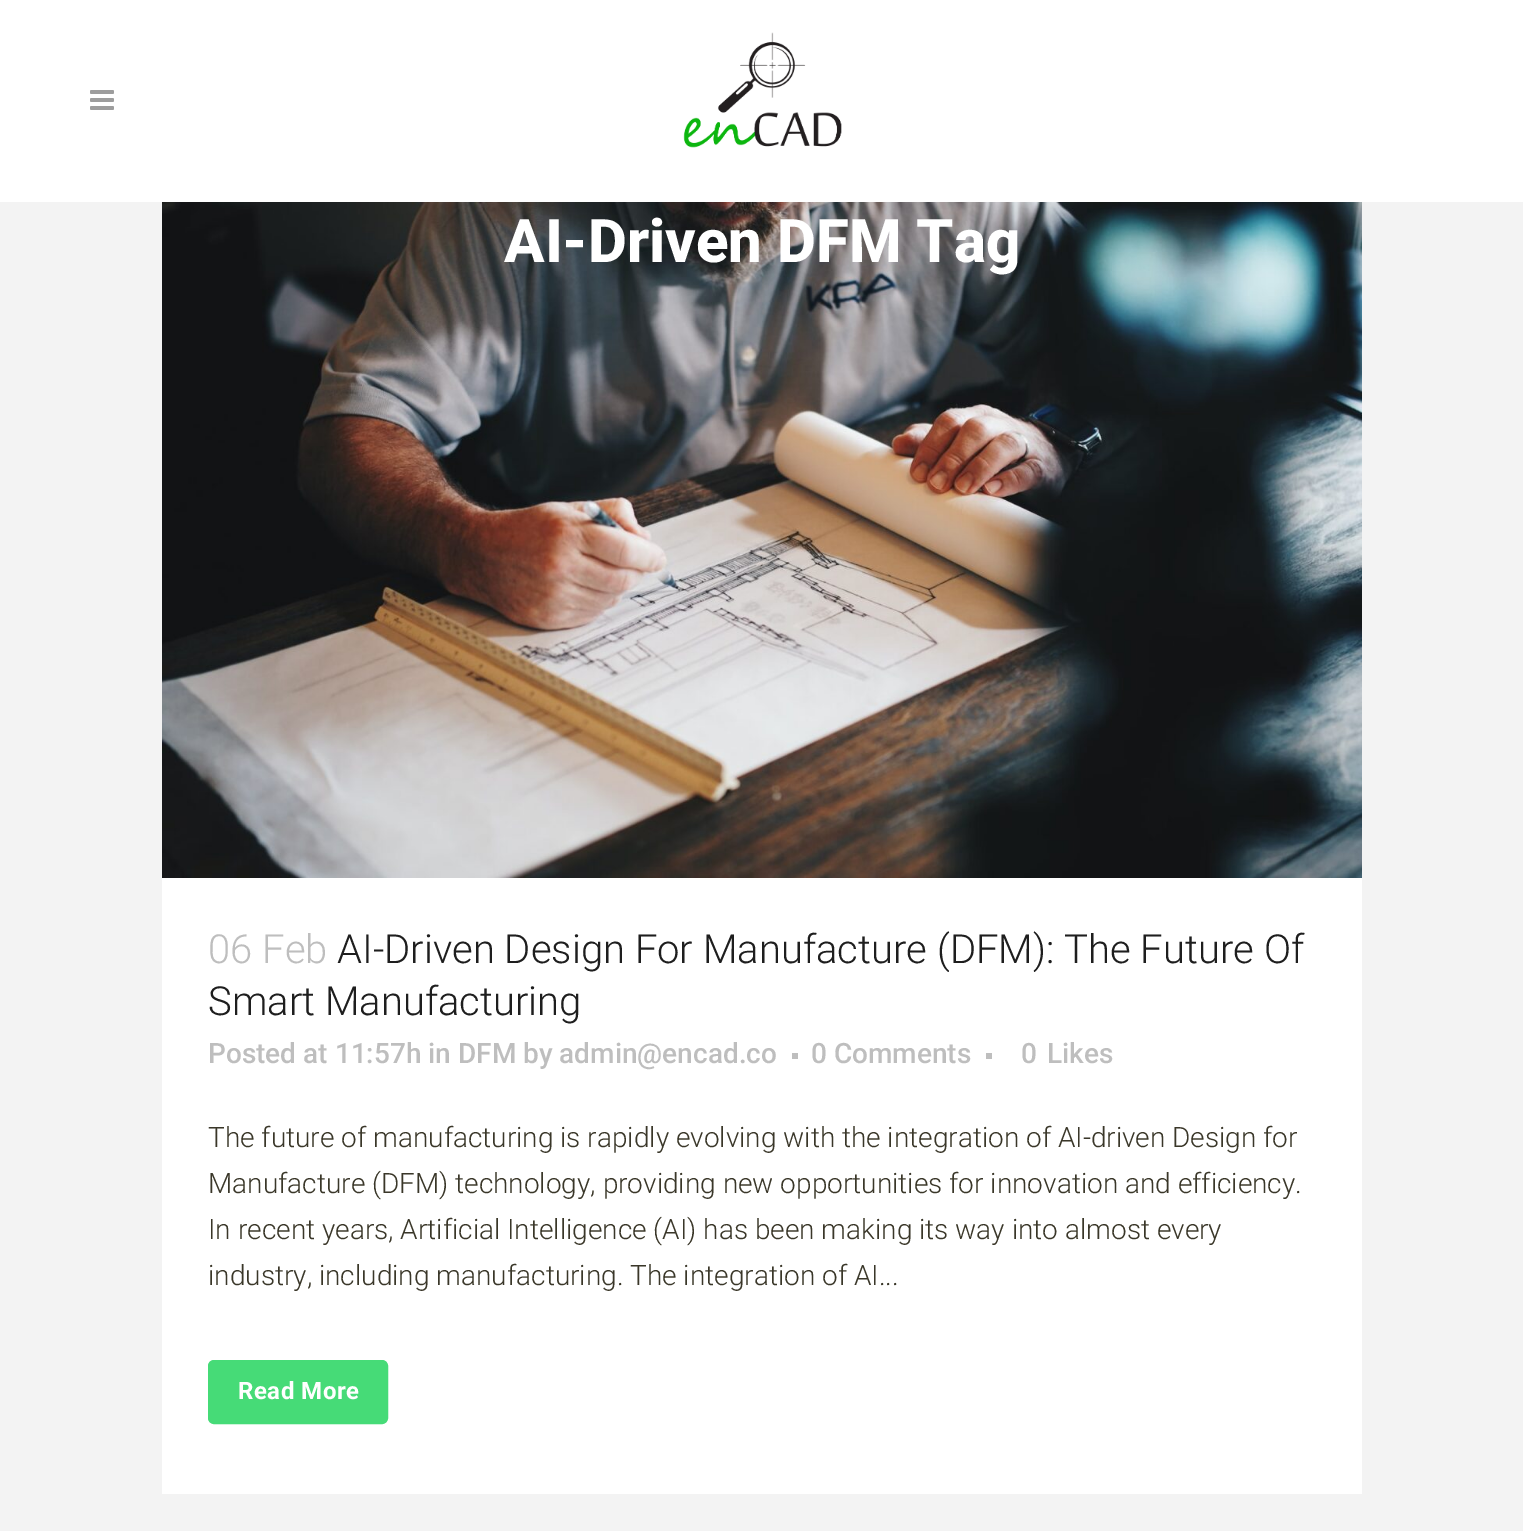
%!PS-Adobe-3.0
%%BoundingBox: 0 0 1523 1531
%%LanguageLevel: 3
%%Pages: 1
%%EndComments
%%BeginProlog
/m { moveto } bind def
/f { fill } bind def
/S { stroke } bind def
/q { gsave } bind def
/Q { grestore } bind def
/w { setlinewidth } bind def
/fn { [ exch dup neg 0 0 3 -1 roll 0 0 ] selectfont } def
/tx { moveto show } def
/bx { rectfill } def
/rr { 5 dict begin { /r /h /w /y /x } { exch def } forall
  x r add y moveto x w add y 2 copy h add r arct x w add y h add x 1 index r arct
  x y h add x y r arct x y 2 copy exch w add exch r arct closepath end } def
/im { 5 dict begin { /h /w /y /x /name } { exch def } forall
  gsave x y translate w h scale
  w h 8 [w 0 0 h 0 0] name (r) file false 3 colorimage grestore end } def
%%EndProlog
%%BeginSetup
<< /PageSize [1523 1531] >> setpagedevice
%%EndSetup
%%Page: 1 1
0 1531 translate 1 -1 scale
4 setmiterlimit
0.953 setgray
0 0 1523 1531 bx
1 setgray
0 0 1523 202 bx
(image0.raw) 90 90 24 20 im
(image1.raw) 683 32 159 116 im
(image2.raw) 162 202 1200 676 im
/Roboto-ExtraBold 60 fn
(AI-Driven DFM Tag) 504 262 tx
162 878 1200 616 bx
/Roboto-Light 40 fn
0.745 setgray
(06 Feb) 208 963 tx
0.118 setgray
(AI-Driven Design For Manufacture \(DFM\): The Future Of) 337 963 tx
(Smart Manufacturing) 208 1015 tx
/Roboto-Medium 28 fn
0.745 setgray
(Posted at 11:57h in DFM by admin@encad.co) 208 1063 tx
792 1053 6 6 bx
(0 Comments) 811 1063 tx
986 1053 6 6 bx
(0) 1021 1063 tx
(Likes) 1047 1063 tx
/Roboto-Light 28 fn
0.227 0.216 0.161 setrgbcolor
(The future of manufacturing is rapidly evolving with the integration of AI-driven Design for) 208 1147 tx
(Manufacture \(DFM\) technology, providing new opportunities for innovation and efficiency.) 208 1193 tx
(In recent years, Artificial Intelligence \(AI\) has been making its way into almost every) 208 1239 tx
(industry, including manufacturing. The integration of AI...) 208 1285 tx
0.275 0.859 0.467 setrgbcolor
209 1361 178 62 5 rr q f Q
2 w
S
/Roboto-Bold 24 fn
1 setgray
238 1399 m 0.5 0 (Read More) ashow
showpage
%%EOF
